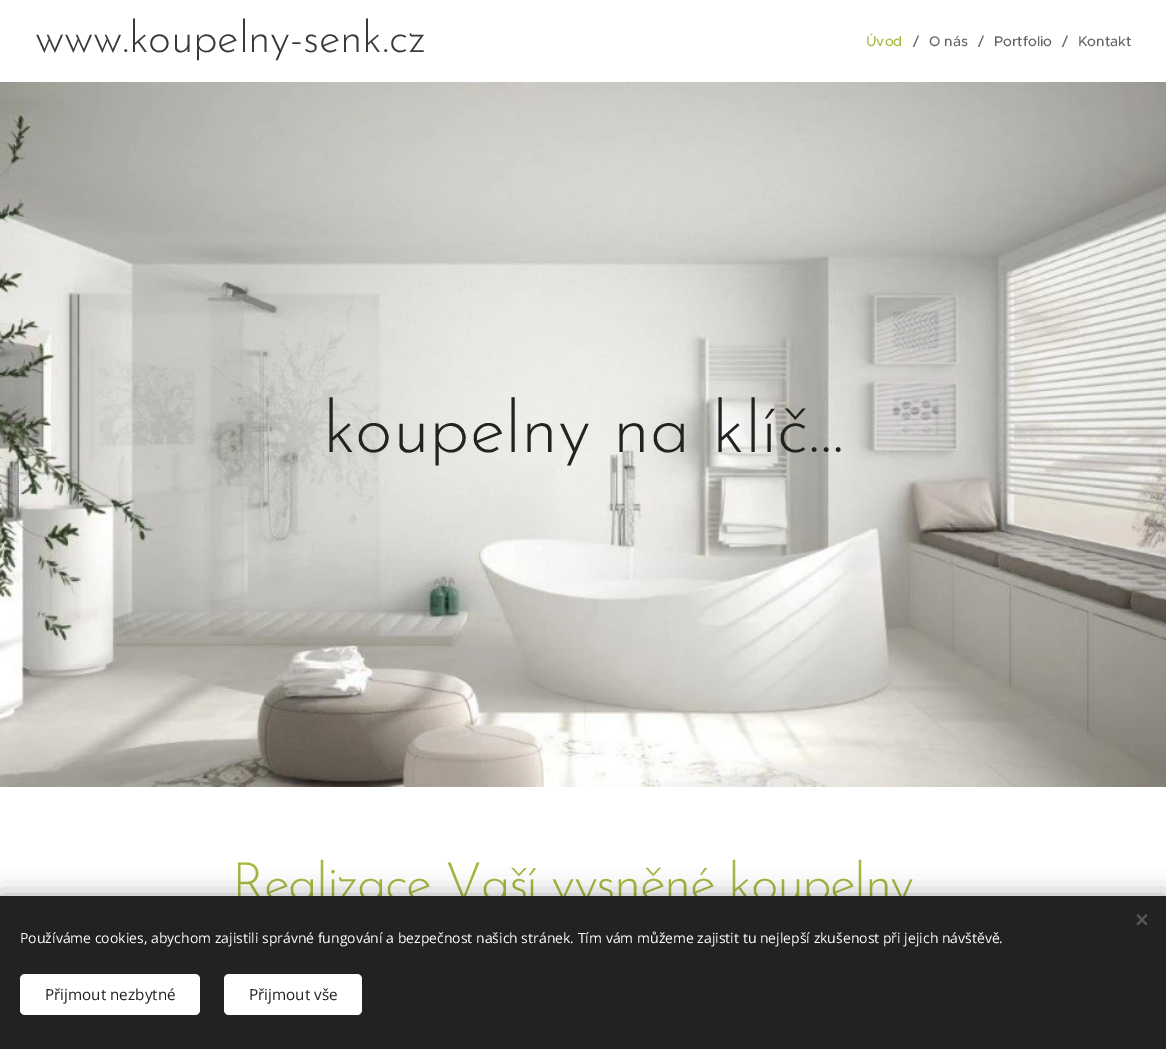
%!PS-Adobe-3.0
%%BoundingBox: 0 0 1166 1049
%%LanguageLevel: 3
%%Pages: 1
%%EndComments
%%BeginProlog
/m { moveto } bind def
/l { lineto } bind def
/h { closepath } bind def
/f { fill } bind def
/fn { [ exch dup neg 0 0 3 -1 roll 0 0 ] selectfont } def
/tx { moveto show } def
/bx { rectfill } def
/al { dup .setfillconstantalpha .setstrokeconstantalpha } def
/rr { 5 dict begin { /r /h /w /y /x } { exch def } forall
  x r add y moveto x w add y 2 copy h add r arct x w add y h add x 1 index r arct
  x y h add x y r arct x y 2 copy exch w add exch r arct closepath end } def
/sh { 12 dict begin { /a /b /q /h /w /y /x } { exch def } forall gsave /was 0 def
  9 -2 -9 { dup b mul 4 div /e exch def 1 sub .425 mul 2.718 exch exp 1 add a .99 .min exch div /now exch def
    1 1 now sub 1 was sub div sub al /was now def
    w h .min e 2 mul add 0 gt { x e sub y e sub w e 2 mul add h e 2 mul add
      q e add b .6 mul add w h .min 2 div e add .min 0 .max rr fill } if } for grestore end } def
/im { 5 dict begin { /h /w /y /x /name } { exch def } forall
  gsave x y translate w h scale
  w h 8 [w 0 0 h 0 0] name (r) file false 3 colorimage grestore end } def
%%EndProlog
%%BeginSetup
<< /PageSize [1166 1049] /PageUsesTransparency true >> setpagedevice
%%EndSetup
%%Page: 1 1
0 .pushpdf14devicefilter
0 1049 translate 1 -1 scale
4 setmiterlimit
1 setgray
0 0 1166 1049 bx
/JosefinSans-Light 44 fn
0.224 setgray
35 52 m -0.3 0 (www.koupelny-senk.cz) ashow
/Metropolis-Medium 14 fn
0.659 0.718 0.255 setrgbcolor
(Úvod) 866 46 tx
0.4 setgray
(/) 913 46 tx
(O nás) 929 46 tx
(/) 978 46 tx
(Portfolio) 994 46 tx
(/) 1062 46 tx
(Kontakt) 1078 46 tx
(image0.raw) 0 82 1166 705 im
/JosefinSans-Light 72 fn
0.133 0.133 0.129 setrgbcolor
(koupelny na klíč...) 323 452 tx
/JosefinSans-Light 53 fn
0.659 0.718 0.255 setrgbcolor
232 900 m -1.6 0 (Realizace Vaší vysněné koupelny) ashow
0 setgray
0 896 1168 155 0 12.5 0.33 sh
0.133 setgray
0 896 1166 153 bx
0.333 setgray
1136.5 924 m 1146 914 l 1147.5 915.5 l 1138 925.5 l h f
1138 914 m 1147.5 924 l 1146 925.5 l 1136.5 915.5 l h f
/OpenSans-Regular 14 fn
1 setgray
(Používáme cookies, abychom zajistili správné fungování a bezpečnost našich stránek. Tím vám můžeme zajistit tu nejlepší zkušenost při jejich návštěvě.) 20 943 tx
20 974 180 41 5 rr f
/OpenSans-Regular 15.25 fn
0.133 0.133 0.129 setrgbcolor
(Přijmout nezbytné) 45 1000 tx
1 setgray
224 974 138 41 5 rr f
0.133 0.133 0.129 setrgbcolor
(Přijmout vše) 249 1000 tx
.poppdf14devicefilter showpage
%%EOF
